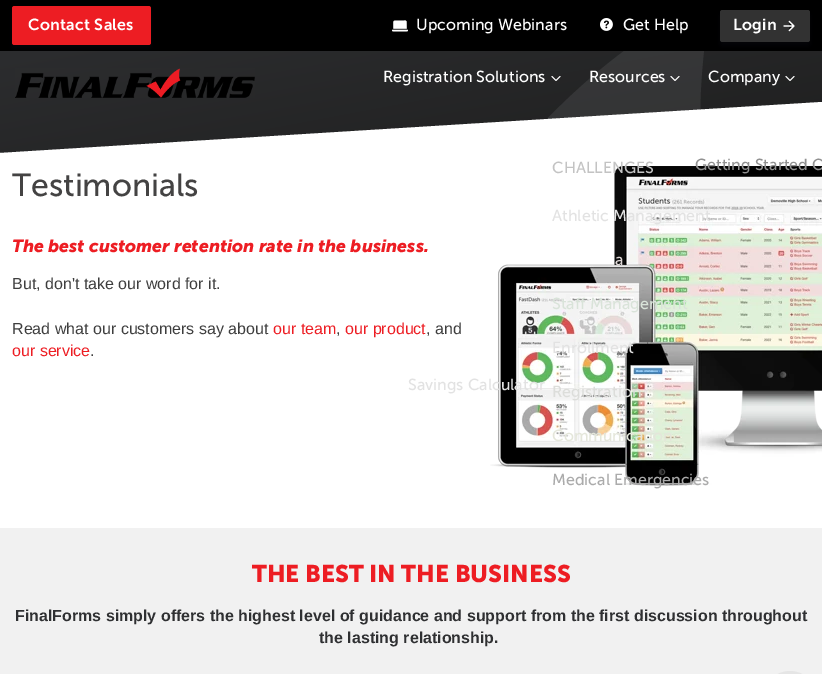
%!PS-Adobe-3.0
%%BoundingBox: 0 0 822 674
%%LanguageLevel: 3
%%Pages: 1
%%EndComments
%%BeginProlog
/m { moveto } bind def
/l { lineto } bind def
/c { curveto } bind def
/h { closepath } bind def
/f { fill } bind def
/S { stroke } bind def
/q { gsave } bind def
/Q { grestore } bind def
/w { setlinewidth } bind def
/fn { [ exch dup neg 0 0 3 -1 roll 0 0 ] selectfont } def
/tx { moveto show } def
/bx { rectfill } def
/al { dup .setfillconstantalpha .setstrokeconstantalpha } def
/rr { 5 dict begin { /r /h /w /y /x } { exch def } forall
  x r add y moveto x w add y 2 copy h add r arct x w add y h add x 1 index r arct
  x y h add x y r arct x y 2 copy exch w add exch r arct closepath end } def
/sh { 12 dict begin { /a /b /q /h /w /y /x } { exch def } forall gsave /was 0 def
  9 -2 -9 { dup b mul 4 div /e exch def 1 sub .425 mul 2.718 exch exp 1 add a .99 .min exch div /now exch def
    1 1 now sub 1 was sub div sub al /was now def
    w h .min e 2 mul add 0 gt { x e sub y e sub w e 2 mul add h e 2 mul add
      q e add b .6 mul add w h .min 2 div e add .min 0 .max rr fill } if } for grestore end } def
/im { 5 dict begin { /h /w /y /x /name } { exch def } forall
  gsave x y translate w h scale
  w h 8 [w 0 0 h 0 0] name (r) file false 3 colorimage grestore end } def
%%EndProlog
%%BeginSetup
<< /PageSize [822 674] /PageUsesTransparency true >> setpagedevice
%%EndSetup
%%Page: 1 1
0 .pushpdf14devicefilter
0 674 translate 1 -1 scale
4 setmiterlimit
1 setgray
0 0 822 674 bx
q 0 51 m 822 51 l 822 153 l 0 153 l h clip newpath
<< /ShadingType 2 /ColorSpace /DeviceRGB /Coords [439 225 383 -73] /Extend [true true] /Function << /FunctionType 2 /Domain [0 1] /C0 [0.122 0.122 0.122] /C1 [0.184 0.188 0.196] /N 1 >> >> shfill Q
q
0 0 822 153 rectclip
0.33 al
0.345 0.349 0.357 setrgbcolor
272 234 m 101 319 l 101 319 214 361 370 536 c 380 519 547 276 721 220 c 718 212 683 170 711 -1 c 496 96 360 388 360 388 c h f
Q
0 setgray
0 0 822 51 bx
0.196 0.196 0.365 setrgbcolor
12 10 139 39 2.5 3 0.11 sh
0.929 0.114 0.137 setrgbcolor
12 6 139 39 2.5 rr f
/MuseoSans-SemiBold 16 fn
1 setgray
28 30 m 0.25 0 (Contact Sales) ashow
/MuseoSans-Regular 16 fn
(Registration Solutions) 383 82 tx
0.9 w
1 setlinecap
1 setlinejoin
552 76.5 m 556 80.5 l 560 76.5 l S
(image4.raw) 490 166 332 320 im
0.765 setgray
(CHALLENGES) 552 173 tx
0.886 setgray
(Athletic Management) 552 221 tx
0.871 0.843 0.839 setrgbcolor
(a) 615 265 tx
0.851 0.89 0.851 setrgbcolor
(Staff Management) 552 309 tx
0.886 setgray
(Enrollment) 552 353 tx
0.863 0.867 0.855 setrgbcolor
(Registration) 552 397 tx
0.894 0.902 0.855 setrgbcolor
(Communication) 552 441 tx
0.671 setgray
(Medical Emergencies) 552 485 tx
1 setgray
(Resources) 589 82 tx
671 76.5 m 675 80.5 l 679 76.5 l S
0.569 setgray
(Getting Started) 695 170 tx
0.886 setgray
(Savings Calculator) 408 390 tx
1 setgray
(Company) 708 82 tx
786 76.5 m 790 80.5 l 794 76.5 l S
0.569 setgray
(O) 812 170 tx
(image0.raw) 15 68 240 30 im
(image1.raw) 392 20 16 12 im
1 setgray
(Upcoming Webinars) 416 30 tx
(image2.raw) 600 18 13 13 im
(Get Help) 623 30 tx
0.196 0.196 0.365 setrgbcolor
720 14 90 32 2.5 3 0.11 sh
0.196 setgray
720 10 90 32 2.5 rr f
/MuseoSans-SemiBold 16 fn
1 setgray
733 30 m 0.25 0 (Login) ashow
(image3.raw) 783 20 12 12 im
0 153 m 822 102 l 822 153 l h f
/MuseoSans-Regular 32 fn
0.267 0.263 0.263 setrgbcolor
(Testimonials) 12 196 tx
/MuseoSans-BoldItalic 17.6 fn
0.929 0.114 0.137 setrgbcolor
(The best customer retention rate in the business.) 12 252 tx
/LiberationSans-Regular 16 fn
0.243 setgray
(But, don't take our word for it.) 12 289 tx
(Read what our customers say about) 12 334 tx
0.929 0.114 0.137 setrgbcolor
(our team) 273 334 tx
0.243 setgray
(,) 336 334 tx
0.929 0.114 0.137 setrgbcolor
(our product) 345 334 tx
0.243 setgray
(, and) 426 334 tx
0.929 0.114 0.137 setrgbcolor
(our service) 12 356 tx
0.243 setgray
(.) 90 356 tx
0.945 setgray
0 528 822 146 bx
/MuseoSans-Bold 24 fn
0.929 0.114 0.137 setrgbcolor
(THE BEST IN THE BUSINESS) 252 582 tx
/LiberationSans-Bold 16 fn
0.184 0.188 0.196 setrgbcolor
(FinalForms simply offers the highest level of guidance and support from the first discussion throughout) 15 621 tx
(the lasting relationship.) 319 643 tx
0.898 setgray
3 w
0 setlinecap
0 setlinejoin
764.5 672.5 51 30 25.5 rr S
.poppdf14devicefilter showpage
%%EOF
